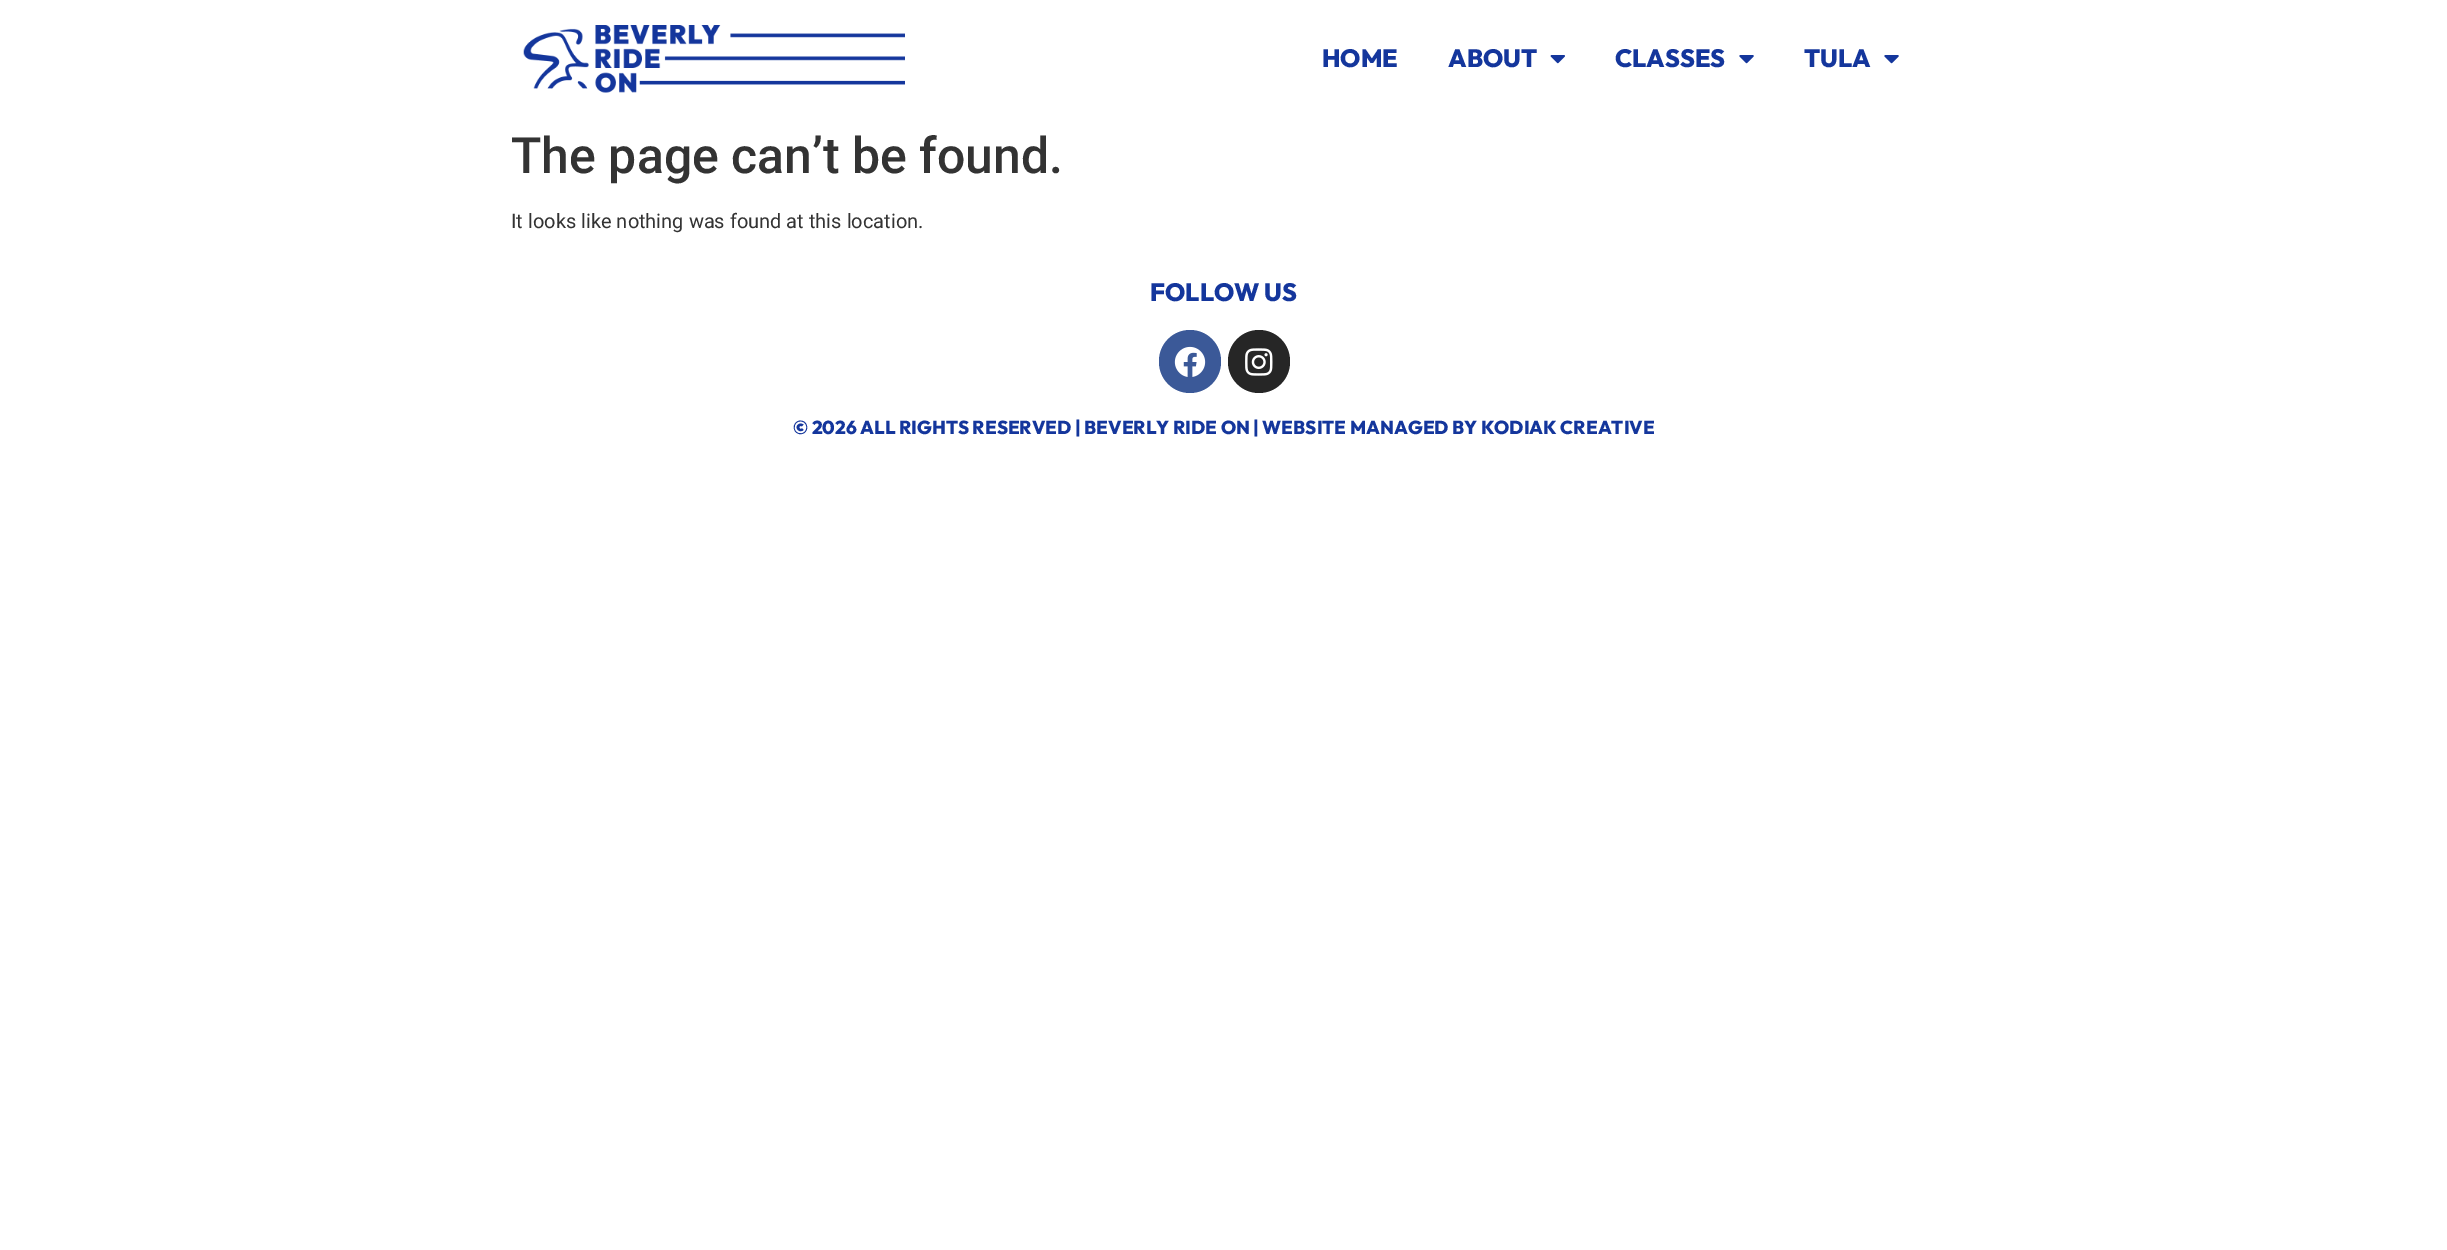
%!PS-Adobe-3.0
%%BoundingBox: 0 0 2447 1250
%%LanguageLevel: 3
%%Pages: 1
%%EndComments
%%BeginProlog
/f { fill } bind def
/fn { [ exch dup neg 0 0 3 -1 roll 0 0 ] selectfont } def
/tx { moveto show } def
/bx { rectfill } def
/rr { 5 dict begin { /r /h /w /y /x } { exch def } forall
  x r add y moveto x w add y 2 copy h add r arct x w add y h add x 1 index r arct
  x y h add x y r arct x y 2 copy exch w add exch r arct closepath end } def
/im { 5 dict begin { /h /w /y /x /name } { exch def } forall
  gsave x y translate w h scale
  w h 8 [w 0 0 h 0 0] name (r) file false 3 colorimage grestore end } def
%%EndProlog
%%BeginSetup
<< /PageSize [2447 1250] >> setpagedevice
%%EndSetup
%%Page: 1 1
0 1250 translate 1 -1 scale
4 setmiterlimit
1 setgray
0 0 2447 1250 bx
(image0.raw) 523 25 382 68 im
/Outfit-ExtraBold 25 fn
0.078 0.212 0.612 setrgbcolor
(HOME) 1322 67 tx
(ABOUT) 1448 67 tx
(image1.raw) 1550 55 15 9 im
(CLASSES) 1615 67 tx
(image2.raw) 1739 55 15 9 im
(TULA) 1804 67 tx
(image2.raw) 1884 55 15 9 im
/Roboto-Medium 50 fn
0.2 setgray
(The page can’t be found.) 511 173 tx
/Roboto-Regular 20 fn
(It looks like nothing was found at this location.) 511 228 tx
/Outfit-ExtraBold 25 fn
0.078 0.212 0.612 setrgbcolor
(FOLLOW US) 1150 301 tx
0.231 0.349 0.596 setrgbcolor
1159 330 62 63 31 rr f
(image3.raw) 1174 346 32 31 im
0.149 setgray
1228 330 62 63 31 rr f
(image4.raw) 1245 348 28 28 im
/Outfit-ExtraBold 18.75 fn
0.078 0.212 0.612 setrgbcolor
(© 2026 ALL RIGHTS RESERVED | BEVERLY RIDE ON | WEBSITE MANAGED BY KODIAK CREATIVE) 793 434 tx
showpage
%%EOF
